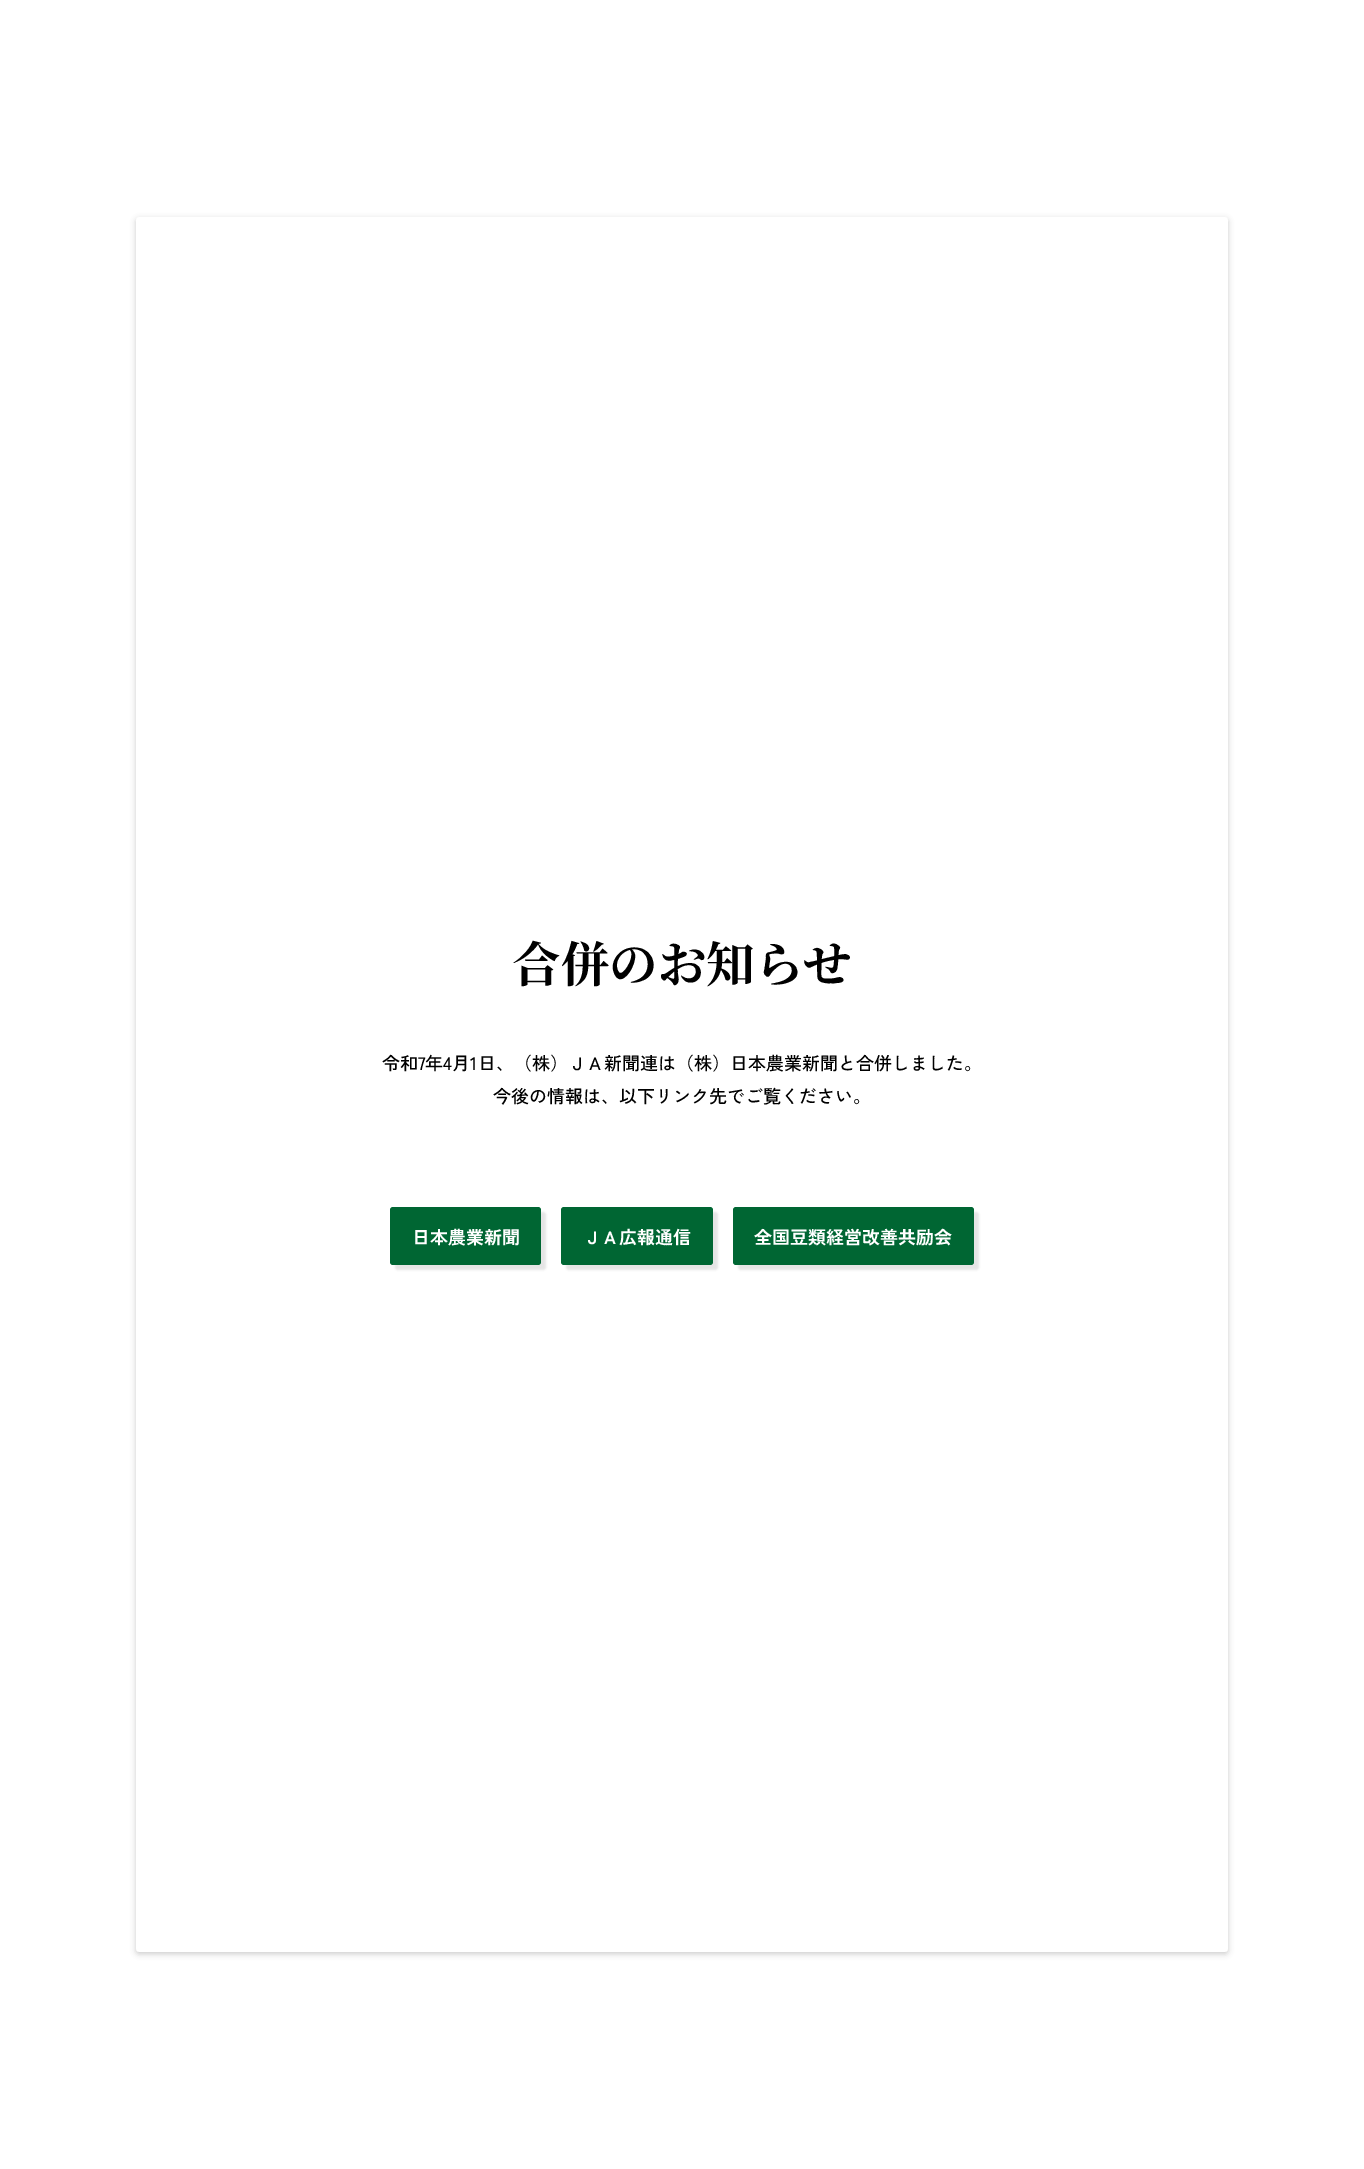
%!PS-Adobe-3.0
%%BoundingBox: 0 0 1364 2169
%%LanguageLevel: 3
%%Pages: 1
%%EndComments
%%BeginProlog
/m { moveto } bind def
/l { lineto } bind def
/c { curveto } bind def
/h { closepath } bind def
/f { fill } bind def
/q { gsave } bind def
/Q { grestore } bind def
/fn { [ exch dup neg 0 0 3 -1 roll 0 0 ] selectfont } def
/tx { moveto show } def
/bx { rectfill } def
/al { dup .setfillconstantalpha .setstrokeconstantalpha } def
/rr { 5 dict begin { /r /h /w /y /x } { exch def } forall
  x r add y moveto x w add y 2 copy h add r arct x w add y h add x 1 index r arct
  x y h add x y r arct x y 2 copy exch w add exch r arct closepath end } def
/sh { 12 dict begin { /a /b /q /h /w /y /x } { exch def } forall gsave /was 0 def
  9 -2 -9 { dup b mul 4 div /e exch def 1 sub .425 mul 2.718 exch exp 1 add a .99 .min exch div /now exch def
    1 1 now sub 1 was sub div sub al /was now def
    w h .min e 2 mul add 0 gt { x e sub y e sub w e 2 mul add h e 2 mul add
      q e add b .6 mul add w h .min 2 div e add .min 0 .max rr fill } if } for grestore end } def
%%EndProlog
%%BeginSetup
<< /PageSize [1364 2169] /PageUsesTransparency true >> setpagedevice
%%EndSetup
%%Page: 1 1
0 .pushpdf14devicefilter
0 2169 translate 1 -1 scale
4 setmiterlimit
1 setgray
0 0 1364 2169 bx
q
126 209 m 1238 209 l 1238 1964 l 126 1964 l h 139 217 m 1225 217 l 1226.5 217 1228 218.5 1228 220 c 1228 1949 l 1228 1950.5 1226.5 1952 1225 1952 c 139 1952 l 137.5 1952 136 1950.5 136 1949 c 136 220 l 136 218.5 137.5 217 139 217 c h eoclip newpath
0 setgray
136 219 1092 1735 3 3 0.2 sh
Q
0.85 al
136 217 1092 1735 3 rr f
/NotoSerifJP-ExtraLight 48.5 fn
1 al
0 setgray
(合併のお知らせ) 512 982 tx
/ZenKakuGothicNew-Medium 18 fn
(令和7年4月1日、（株）ＪＡ新聞連は（株）日本農業新聞と合併しました。) 382 1070 tx
(今後の情報は、以下リンク先でご覧ください。) 493 1103 tx
395 1212 151 58 3 1 0.1 sh
0 0.4 0.2 setrgbcolor
390 1207 151 58 3 rr f
/ZenKakuGothicNew-Bold 18 fn
1 setgray
(日本農業新聞) 412 1244 tx
0 setgray
566 1212 152 58 3 1 0.1 sh
0 0.4 0.2 setrgbcolor
561 1207 152 58 3 rr f
1 setgray
(ＪＡ広報通信) 583 1244 tx
0 setgray
738 1212 241 58 3 1 0.1 sh
0 0.4 0.2 setrgbcolor
733 1207 241 58 3 rr f
1 setgray
(全国豆類経営改善共励会) 754 1244 tx
.poppdf14devicefilter showpage
%%EOF
